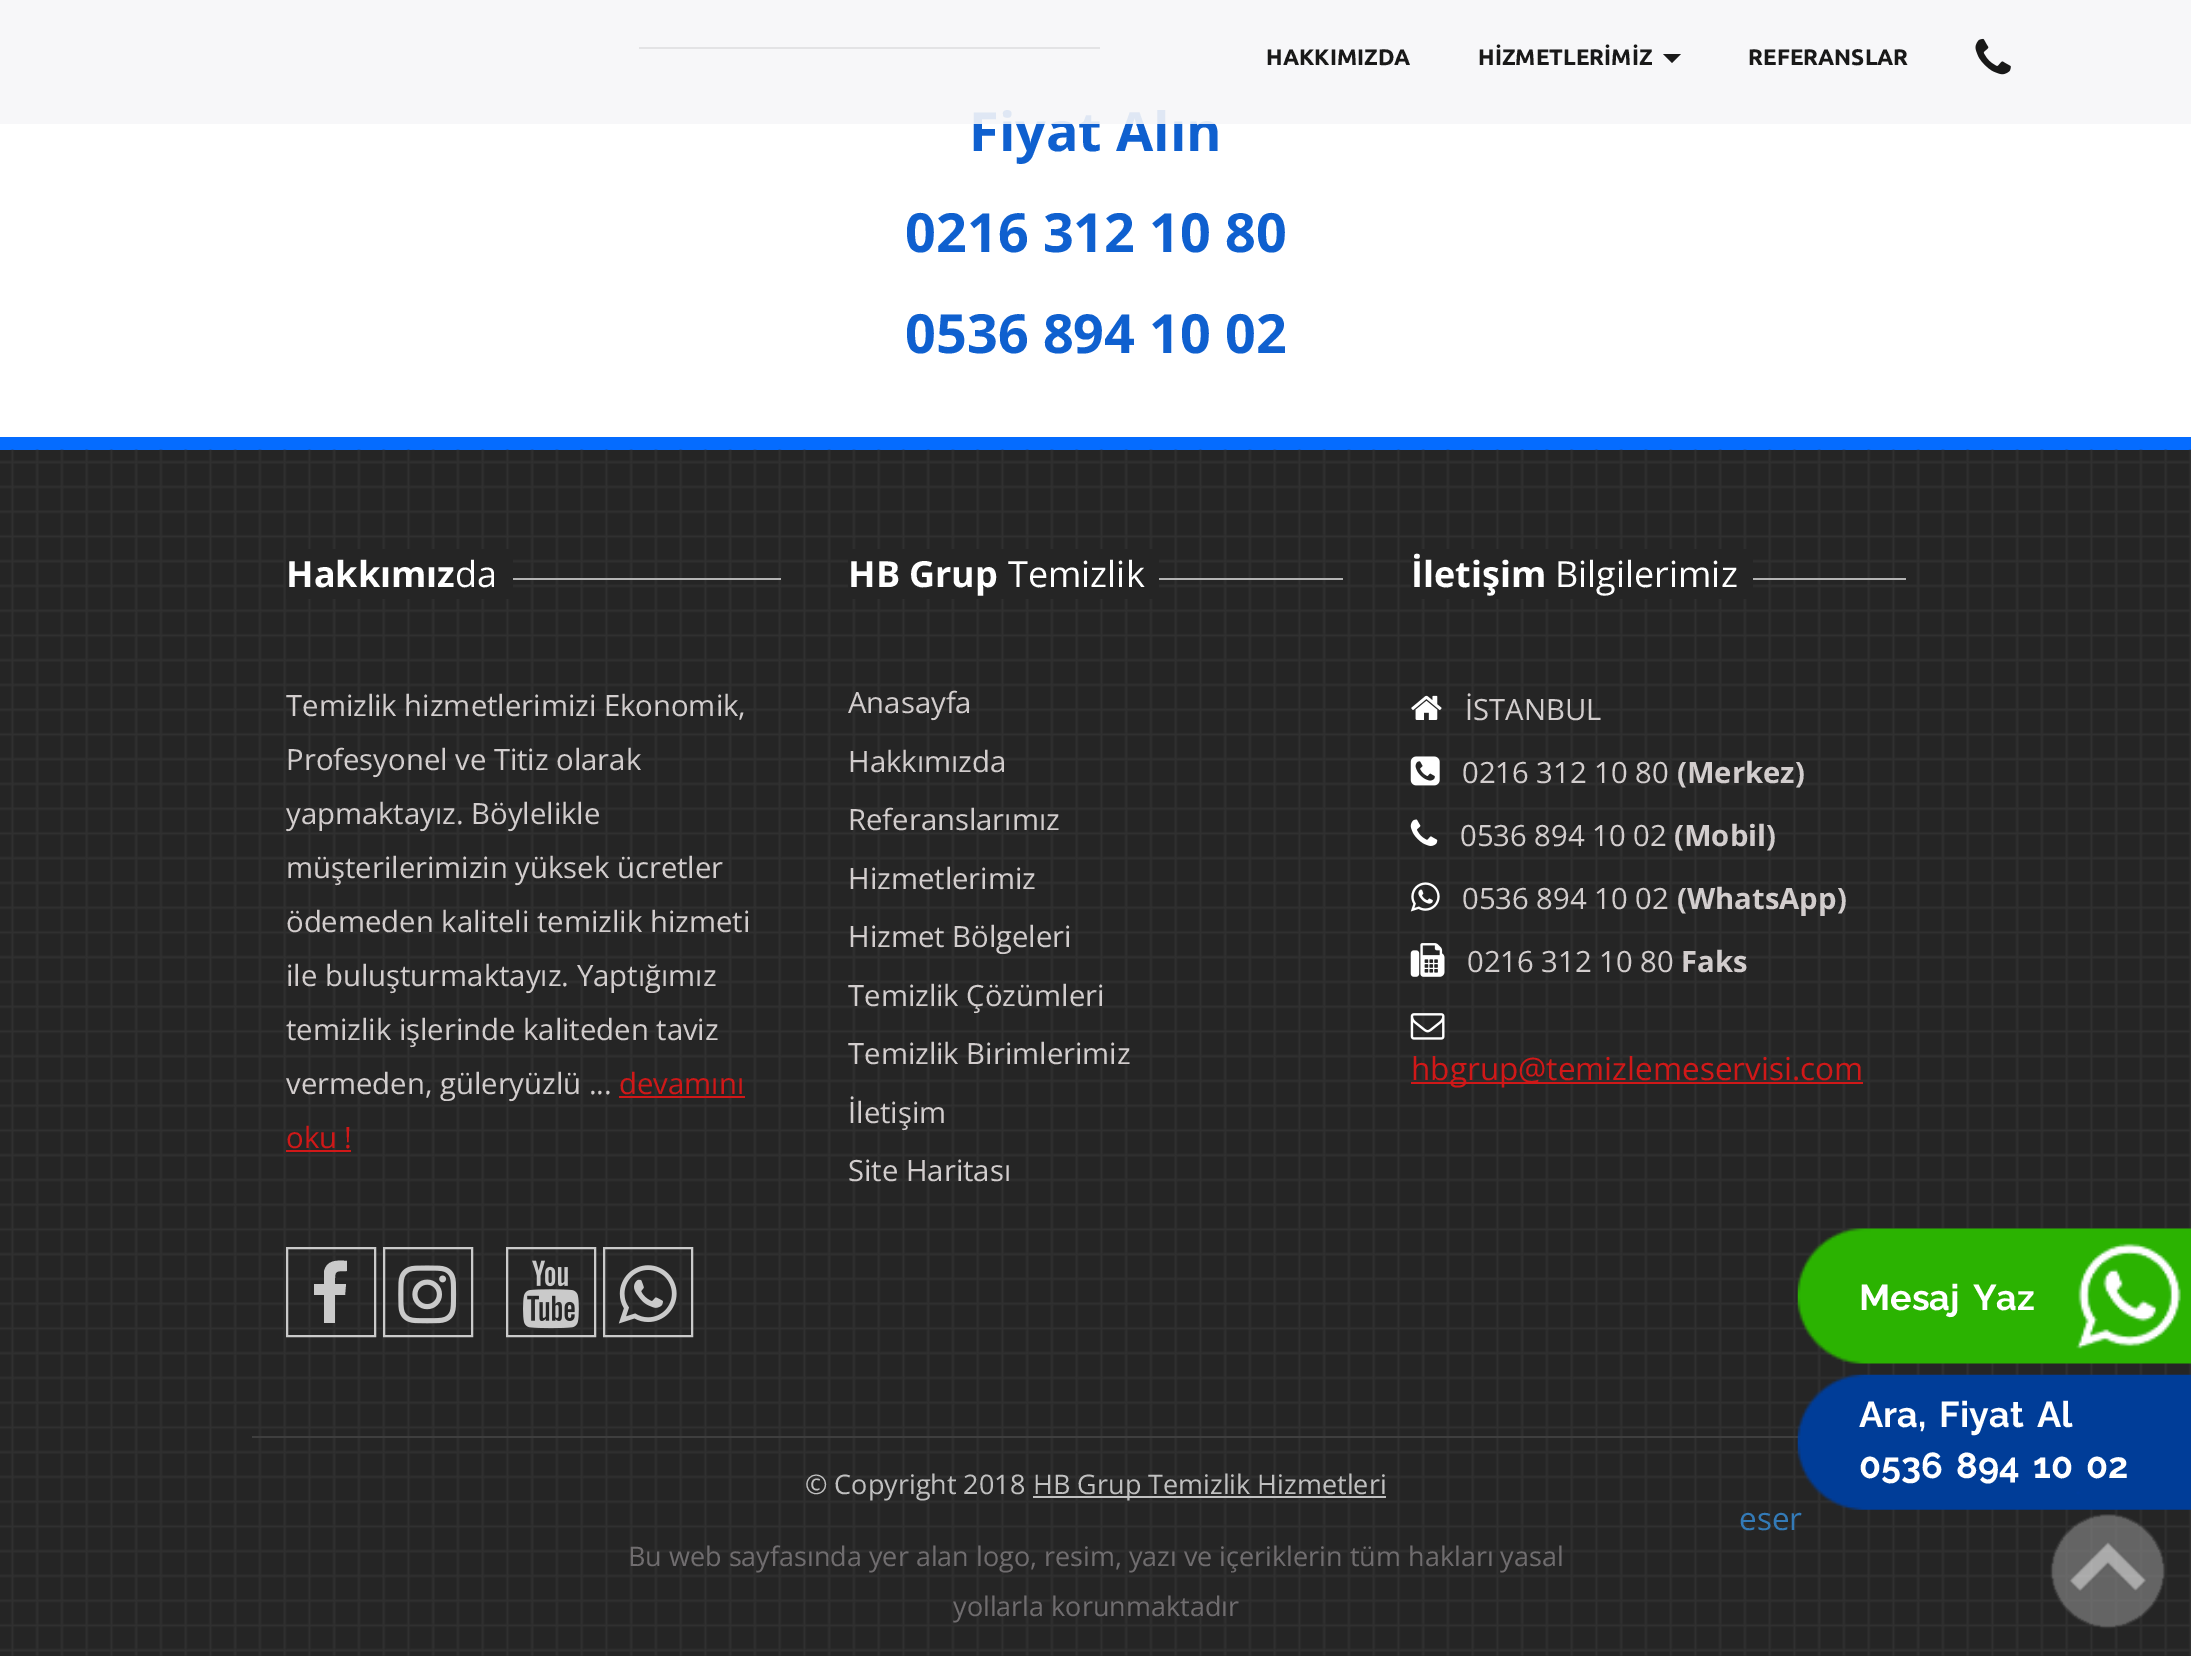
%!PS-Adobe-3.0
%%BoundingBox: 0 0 2191 1656
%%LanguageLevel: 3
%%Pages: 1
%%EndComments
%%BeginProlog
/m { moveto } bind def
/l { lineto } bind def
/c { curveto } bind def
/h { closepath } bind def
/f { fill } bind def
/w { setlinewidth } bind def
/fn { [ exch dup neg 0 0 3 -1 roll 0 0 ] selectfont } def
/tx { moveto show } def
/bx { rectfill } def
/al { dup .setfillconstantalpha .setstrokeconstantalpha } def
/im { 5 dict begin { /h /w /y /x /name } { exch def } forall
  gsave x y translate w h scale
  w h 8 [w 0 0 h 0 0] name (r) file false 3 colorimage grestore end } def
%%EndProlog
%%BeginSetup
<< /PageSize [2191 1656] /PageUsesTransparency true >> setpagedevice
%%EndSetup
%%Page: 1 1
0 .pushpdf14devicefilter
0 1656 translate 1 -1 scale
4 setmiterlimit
1 setgray
0 0 2191 1656 bx
0.2 setgray
639 47 461 2 bx
/OpenSans-Bold 54 fn
0.059 0.376 0.812 setrgbcolor
(Fiyat Alın) 969 151 tx
0.9 al
0.965 0.965 0.973 setrgbcolor
0 0 2191 124 bx
/Ubuntu-Bold 22.5 fn
1 al
0.098 setgray
(HAKKIMIZDA) 1266 65 tx
(HİZMETLERİMİZ) 1478 65 tx
0.102 setgray
1663 54 m 1681 54 l 1672 63 l h f
0.098 setgray
(REFERANSLAR) 1748 65 tx
(image0.raw) 1975 38 36 37 im
/OpenSans-Bold 54 fn
0.059 0.376 0.812 setrgbcolor
(0216 312 10 80) 905 252 tx
(0536 894 10 02) 905 353 tx
0.02 0.424 1 setrgbcolor
0 437 2191 13 bx
0.145 setgray
0 450 2191 1206 bx
(image1.raw) 0 449 2191 1207 im
286 549 227 50 bx
/OpenSans-Bold 36 fn
1 setgray
(Hakkımız) 286 587 tx
/OpenSans-Regular 36 fn
(da) 455 587 tx
0.706 setgray
513 578 268 2 bx
/OpenSans-Regular 29.25 fn
0.824 0.804 0.804 setrgbcolor
(Temizlik hizmetlerimizi Ekonomik,) 286 716 tx
(Profesyonel ve Titiz olarak) 286 770 tx
(yapmaktayız. Böylelikle) 286 824 tx
(müşterilerimizin yüksek ücretler) 286 878 tx
(ödemeden kaliteli temizlik hizmeti) 286 932 tx
(ile buluşturmaktayız. Yaptığımız) 286 986 tx
(temizlik işlerinde kaliteden taviz) 286 1040 tx
(vermeden, güleryüzlü ...) 286 1094 tx
0.816 0.094 0.094 setrgbcolor
(devamını) 619 1094 tx
619 1096 126 2 bx
(oku !) 286 1148 tx
286 1150 65 2 bx
0.792 setgray
2 w
287 1248 88 88 rectstroke
347 1261 m 347 1271 l 334 1271 335 1271 335 1284 c 346 1284 l 345 1295 l 335 1295 l 335 1323 l 324 1323 l 324 1295 l 314 1295 l 314 1284 l 324 1284 l 324 1272 l 326 1260 337 1260 347 1261 c h f
384 1248 88 88 rectstroke
(image2.raw) 398 1265 59 59 im
507 1248 88 88 rectstroke
(image3.raw) 523 1260 56 69 im
604 1248 88 88 rectstroke
(image4.raw) 618 1265 59 59 im
0.145 setgray
848 549 311 50 bx
/OpenSans-Bold 36 fn
1 setgray
(HB Grup) 848 587 tx
/OpenSans-Regular 36 fn
(Temizlik) 1008 587 tx
0.706 setgray
1159 578 184 2 bx
/OpenSans-Regular 29.25 fn
0.824 0.804 0.804 setrgbcolor
(Anasayfa) 848 713 tx
(Hakkımızda) 848 772 tx
(Referanslarımız) 848 830 tx
(Hizmetlerimiz) 848 889 tx
(Hizmet Bölgeleri) 848 947 tx
(Temizlik Çözümleri) 848 1006 tx
(Temizlik Birimlerimiz) 848 1064 tx
(İletişim) 848 1123 tx
(Site Haritası) 848 1181 tx
0.145 setgray
1411 549 342 50 bx
/OpenSans-Bold 36 fn
1 setgray
(İletişim) 1411 587 tx
/OpenSans-Regular 36 fn
(Bilgilerimiz) 1555 587 tx
0.706 setgray
1753 578 153 2 bx
(image5.raw) 1411 695 31 25 im
/OpenSans-Regular 29.25 fn
0.824 0.804 0.804 setrgbcolor
(İSTANBUL) 1465 720 tx
(image6.raw) 1410 756 30 30 im
(0216 312 10 80) 1462 783 tx
/OpenSans-Bold 29.25 fn
(\(Merkez\)) 1677 783 tx
(image7.raw) 1410 819 28 27 im
/OpenSans-Regular 29.25 fn
(0536 894 10 02) 1460 846 tx
/OpenSans-Bold 29.25 fn
(\(Mobil\)) 1674 846 tx
(image8.raw) 1410 882 30 30 im
/OpenSans-Regular 29.25 fn
(0536 894 10 02) 1462 909 tx
/OpenSans-Bold 29.25 fn
(\(WhatsApp\)) 1677 909 tx
(image9.raw) 1410 943 35 34 im
/OpenSans-Regular 29.25 fn
(0216 312 10 80) 1467 972 tx
/OpenSans-Bold 29.25 fn
(Faks) 1681 972 tx
(image10.raw) 1410 1013 35 27 im
0.816 0.094 0.094 setrgbcolor
1411 1082 452 2 bx
/OpenSans-Regular 31.5 fn
(hbgrup@temizlemeservisi.com) 1411 1080 tx
0.243 setgray
252 1436 1549 2 bx
/OpenSans-Regular 27 fn
0.753 setgray
(© Copyright 2018) 805 1494 tx
1033 1496 353 2 bx
(HB Grup Temizlik Hizmetleri) 1033 1494 tx
0.439 0.427 0.435 setrgbcolor
(Bu web sayfasında yer alan logo, resim, yazı ve içeriklerin tüm hakları yasal) 628 1566 tx
(yollarla korunmaktadır) 953 1616 tx
/OpenSans-Regular 31.5 fn
0.2 0.478 0.718 setrgbcolor
(eser) 1739 1530 tx
(image11.raw) 1797 1228 394 136 im
/Raleway-Bold 36 fn
1 setgray
1859 1310 m 4.5 0 32 (Mesaj Yaz) widthshow
(image12.raw) 1797 1374 394 136 im
1859 1427 m 4.5 0 32 (Ara, Fiyat Al) widthshow
1859 1478 m 4.5 0 32 (0536 894 10 02) widthshow
(image13.raw) 2050 1514 115 115 im
.poppdf14devicefilter showpage
%%EOF
